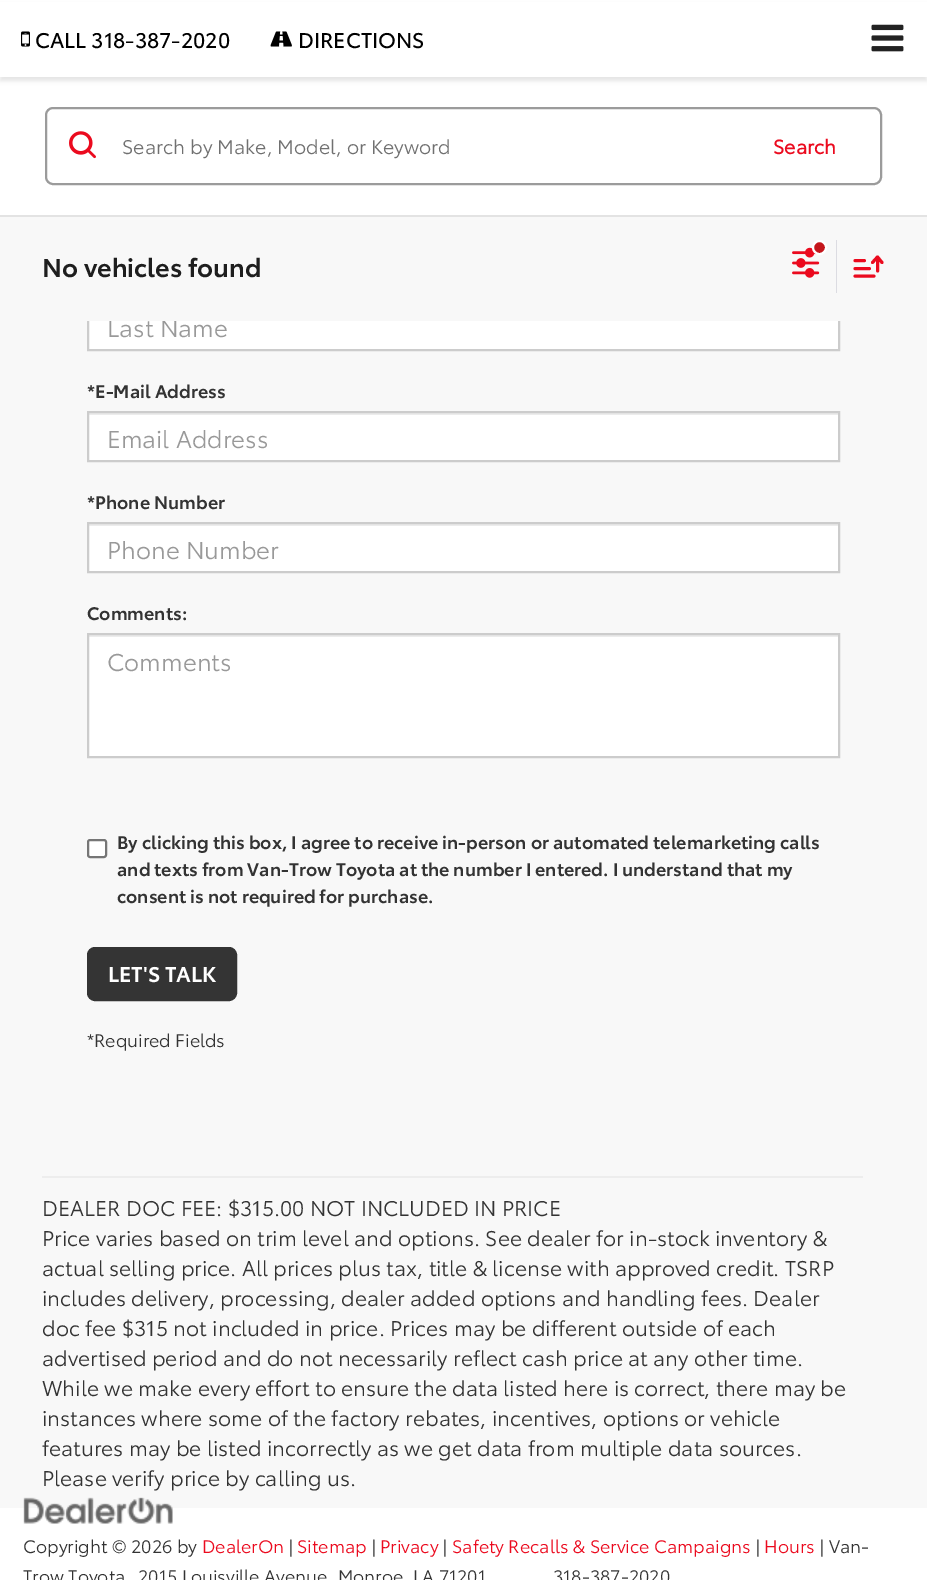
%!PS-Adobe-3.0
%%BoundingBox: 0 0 927 1580
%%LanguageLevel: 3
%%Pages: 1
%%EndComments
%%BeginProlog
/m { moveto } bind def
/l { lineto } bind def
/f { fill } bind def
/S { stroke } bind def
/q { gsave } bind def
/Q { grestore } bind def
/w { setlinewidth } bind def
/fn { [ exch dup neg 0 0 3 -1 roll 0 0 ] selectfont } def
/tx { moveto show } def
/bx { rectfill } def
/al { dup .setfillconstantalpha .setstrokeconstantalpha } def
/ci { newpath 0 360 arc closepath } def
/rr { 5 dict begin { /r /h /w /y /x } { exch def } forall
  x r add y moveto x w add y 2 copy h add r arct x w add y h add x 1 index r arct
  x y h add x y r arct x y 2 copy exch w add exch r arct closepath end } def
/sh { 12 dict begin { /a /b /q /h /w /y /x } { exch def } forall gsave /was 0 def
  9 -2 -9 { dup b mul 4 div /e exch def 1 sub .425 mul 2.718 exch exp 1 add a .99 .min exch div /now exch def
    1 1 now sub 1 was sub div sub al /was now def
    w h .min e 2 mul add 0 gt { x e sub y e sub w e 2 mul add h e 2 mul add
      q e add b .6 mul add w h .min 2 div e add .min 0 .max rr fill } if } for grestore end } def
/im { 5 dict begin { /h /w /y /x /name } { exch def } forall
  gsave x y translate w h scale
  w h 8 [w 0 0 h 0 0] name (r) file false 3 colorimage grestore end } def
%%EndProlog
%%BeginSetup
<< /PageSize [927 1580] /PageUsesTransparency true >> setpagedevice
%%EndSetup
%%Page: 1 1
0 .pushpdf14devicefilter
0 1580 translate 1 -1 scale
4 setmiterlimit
1 setgray
0 0 927 1580 bx
0 setgray
0 5 927 76 0 2 0.1 sh
1 setgray
0 2 927 75 bx
(image0.raw) 871 24 33 28 im
(image1.raw) 21 31 9 16 im
/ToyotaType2-Regular 21 fn
0 setgray
(CALL 318-387-2020) 35 48 tx
(image2.raw) 270 31 22 16 im
(DIRECTIONS) 298 48 tx
0.89 setgray
0 215 927 2 bx
0.608 setgray
2 w
46 108 835 76 7 rr S
(image3.raw) 69 131 27 28 im
/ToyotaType-Regular 19.5 fn
0.439 setgray
(Search by Make, Model, or Keyword) 122 154 tx
/ToyotaType-Bold 19.5 fn
0.922 0.039 0.118 setrgbcolor
(Search) 773 154 tx
0.973 setgray
0 321 927 1187 bx
1 setgray
89 321 749 28 bx
0.8 setgray
88 301 751 49 rectstroke
/ToyotaType-Regular 24 fn
0.6 setgray
(Last Name) 107 337 tx
0.973 setgray
0 217 927 104 bx
/ToyotaType-SemiBold 25.5 fn
0.118 setgray
(No vehicles found) 42 277 tx
(image4.raw) 792 247 28 31 im
0.769 0.086 0.11 setrgbcolor
819.5 247.5 6.5 ci q f Q
1 setgray
S
0.863 0.863 0.886 setrgbcolor
836 240 1 53 bx
0.922 0.039 0.118 setrgbcolor
3 w
1 setlinecap
1 setlinejoin
855 276 m 874 276 l 855 268.5 m 869.5 268.5 l 855 260.5 m 864.5 260.5 l 877.5 271 m 877.5 257 l 877.5 257 m 882 262.5 l 877.5 257 m 872.5 262.5 l S
/ToyotaType-SemiBold 18 fn
0.2 setgray
(*E-Mail Address) 87 398 tx
1 setgray
89 415 749 45 bx
0.925 setgray
89 413 750 2 bx
0.8 setgray
2 w
0 setlinecap
0 setlinejoin
88 412 751 49 rectstroke
/ToyotaType-Regular 24 fn
0.6 setgray
(Email Address) 107 448 tx
/ToyotaType-SemiBold 18 fn
0.2 setgray
(*Phone Number) 87 509 tx
1 setgray
89 526 749 45 bx
0.925 setgray
89 524 750 2 bx
0.8 setgray
88 523 751 49 rectstroke
/ToyotaType-Regular 24 fn
0.6 setgray
(Phone Number) 107 559 tx
/ToyotaType-SemiBold 18 fn
0.2 setgray
(Comments:) 87 620 tx
1 setgray
89 637 749 119 bx
0.925 setgray
89 635 750 2 bx
0.8 setgray
88 634 751 123 rectstroke
/ToyotaType-Regular 24 fn
0.6 setgray
(Comments) 107 671 tx
1 setgray
88 840 18 17 2 rr q f Q
0.463 setgray
S
/ToyotaType-SemiBold 18 fn
0.2 setgray
(By clicking this box, I agree to receive in-person or automated telemarketing calls) 117 849 tx
(and texts from Van-Trow Toyota at the number I entered. I understand that my) 117 876 tx
(consent is not required for purchase.) 117 903 tx
0.204 setgray
88.5 948.5 147 51 6.5 rr q f Q
3 w
S
/ToyotaType-SemiBold 21 fn
1 setgray
(LET'S TALK) 108 982 tx
/ToyotaType-Regular 17.8 fn
0.2 setgray
(*Required Fields) 87 1047 tx
0.929 setgray
42 1176 821 2 bx
/ToyotaType-Regular 21 fn
0.2 setgray
(DEALER DOC FEE: $315.00 NOT INCLUDED IN PRICE) 42 1216 tx
(Price varies based on trim level and options. See dealer for in-stock inventory &) 42 1246 tx
(actual selling price. All prices plus tax, title & license with approved credit. TSRP) 42 1276 tx
(includes delivery, processing, dealer added options and handling fees. Dealer) 42 1306 tx
(doc fee $315 not included in price. Prices may be different outside of each) 42 1336 tx
(advertised period and do not necessarily reflect cash price at any other time.) 42 1366 tx
(While we make every effort to ensure the data listed here is correct, there may be) 42 1396 tx
(instances where some of the factory rebates, incentives, options or vehicle) 42 1426 tx
(features may be listed incorrectly as we get data from multiple data sources.) 42 1456 tx
(Please verify price by calling us.) 42 1486 tx
(image5.raw) 23 1497 150 27 im
/ToyotaType-Regular 17.8 fn
(Copyright © 2026 by) 23 1553 tx
0.922 0.039 0.118 setrgbcolor
(DealerOn) 202 1553 tx
0.2 setgray
(|) 289 1553 tx
0.922 0.039 0.118 setrgbcolor
(Sitemap) 297 1553 tx
0.2 setgray
(|) 372 1553 tx
0.922 0.039 0.118 setrgbcolor
(Privacy) 380 1553 tx
0.2 setgray
(|) 443 1553 tx
0.922 0.039 0.118 setrgbcolor
(Safety Recalls & Service Campaigns) 452 1553 tx
0.2 setgray
(|) 756 1553 tx
0.922 0.039 0.118 setrgbcolor
(Hours) 764 1553 tx
0.2 setgray
(| Van-) 820 1553 tx
(Trow Toyota) 23 1583 tx
(2015 Louisville Avenue) 138 1583 tx
(Monroe) 338 1583 tx
(LA 71201) 413 1583 tx
(318-387-2020) 553 1583 tx
.poppdf14devicefilter showpage
%%EOF
